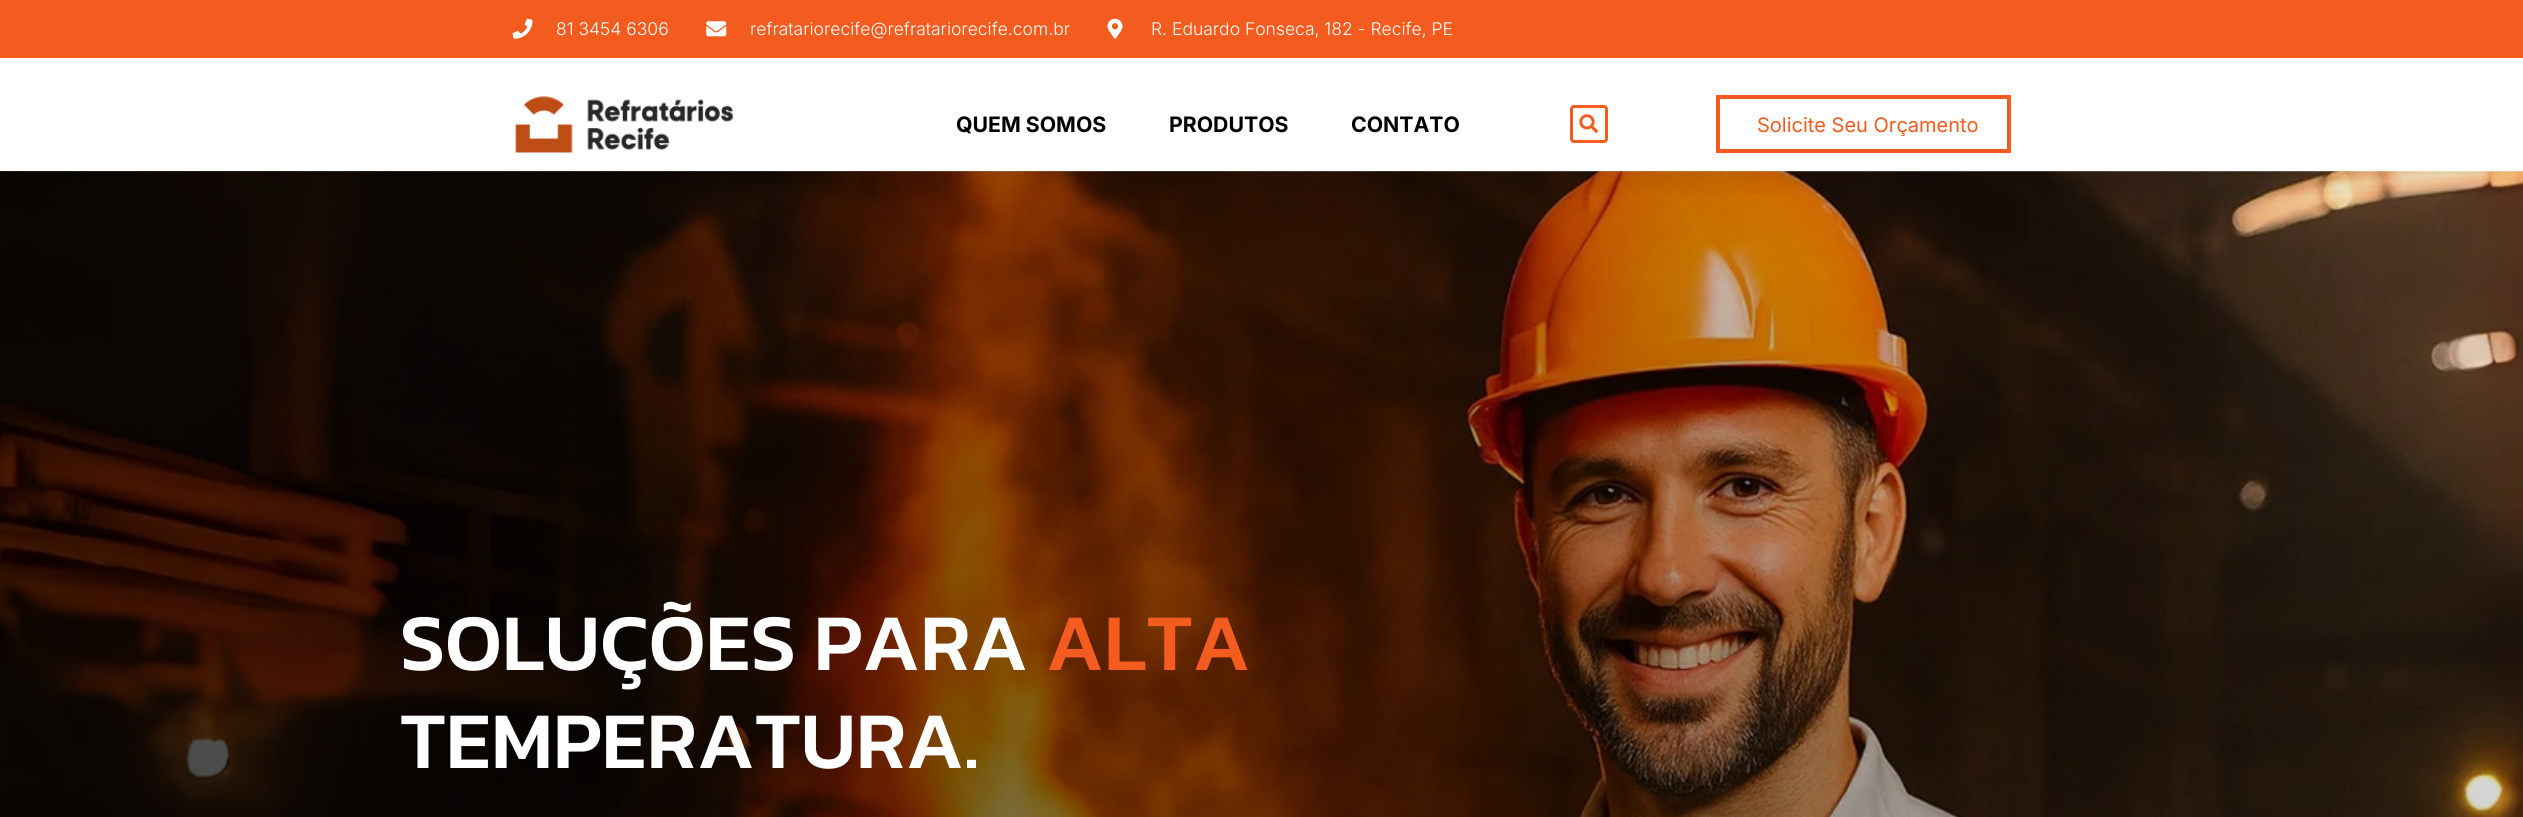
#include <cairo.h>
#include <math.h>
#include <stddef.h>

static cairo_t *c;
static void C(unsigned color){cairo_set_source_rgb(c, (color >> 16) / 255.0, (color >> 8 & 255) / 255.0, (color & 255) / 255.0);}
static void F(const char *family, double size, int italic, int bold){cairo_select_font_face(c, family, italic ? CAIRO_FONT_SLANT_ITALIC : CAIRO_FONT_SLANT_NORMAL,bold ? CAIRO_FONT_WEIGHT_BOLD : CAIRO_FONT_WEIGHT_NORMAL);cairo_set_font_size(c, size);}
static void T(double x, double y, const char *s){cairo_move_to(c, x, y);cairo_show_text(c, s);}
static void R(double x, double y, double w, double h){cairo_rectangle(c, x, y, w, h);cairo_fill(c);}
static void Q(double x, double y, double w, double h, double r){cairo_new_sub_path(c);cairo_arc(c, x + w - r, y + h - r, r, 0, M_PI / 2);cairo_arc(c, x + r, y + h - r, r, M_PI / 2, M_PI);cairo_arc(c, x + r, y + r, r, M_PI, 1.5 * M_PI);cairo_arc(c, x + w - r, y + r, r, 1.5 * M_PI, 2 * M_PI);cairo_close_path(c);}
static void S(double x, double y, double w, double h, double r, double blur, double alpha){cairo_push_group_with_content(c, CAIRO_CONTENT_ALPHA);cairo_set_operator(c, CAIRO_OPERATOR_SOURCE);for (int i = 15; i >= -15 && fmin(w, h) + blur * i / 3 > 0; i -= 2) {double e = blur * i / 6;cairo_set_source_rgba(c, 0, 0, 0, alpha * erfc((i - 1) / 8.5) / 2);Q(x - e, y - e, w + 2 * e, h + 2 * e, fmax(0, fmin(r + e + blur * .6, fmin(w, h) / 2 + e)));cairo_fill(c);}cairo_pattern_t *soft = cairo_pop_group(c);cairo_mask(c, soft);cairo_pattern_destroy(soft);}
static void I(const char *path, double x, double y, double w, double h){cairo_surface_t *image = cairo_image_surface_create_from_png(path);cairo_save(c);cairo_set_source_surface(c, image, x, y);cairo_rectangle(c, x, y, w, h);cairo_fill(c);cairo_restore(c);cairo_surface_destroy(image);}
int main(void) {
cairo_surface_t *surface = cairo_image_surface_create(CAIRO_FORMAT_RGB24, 2523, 817);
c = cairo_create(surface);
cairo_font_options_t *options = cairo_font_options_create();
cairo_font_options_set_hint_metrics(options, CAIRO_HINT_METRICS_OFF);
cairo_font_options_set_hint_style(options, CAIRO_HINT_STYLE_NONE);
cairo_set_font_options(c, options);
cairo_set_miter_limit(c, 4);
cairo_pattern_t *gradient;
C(0xffffff);
cairo_paint(c);
I("6.png",0,171,2523,646);
gradient = cairo_pattern_create_linear(337,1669,2187,-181);
cairo_pattern_add_color_stop_rgba(gradient,0,0,0,0,.89);
cairo_pattern_add_color_stop_rgba(gradient,1,0,0,0,0);
cairo_set_source(c,gradient);
cairo_pattern_destroy(gradient);
R(0,171,2523,646);
cairo_save(c);
cairo_rectangle(c,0,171,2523,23);
cairo_clip(c);
C(0x000000);
S(0,6,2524,172,0,19,.1);
cairo_restore(c);
C(0xf45b1e);
R(0,0,2523,58);
I("1.png",512,18,21,21);
F("Inter Light",17.5,0,0);
C(0xffffff);
T(556,35,"81 3454 6306");
I("2.png",706,21,21,16);
T(750,35,"refratariorecife@refratariorecife.com.br");
I("3.png",1107,18,16,21);
T(1151,35,"R. Eduardo Fonseca, 182 - Recife, PE");
I("4.png",515,96,219,57);
F("Inter",21.25,0,1);
C(0x000000);
T(956,132,"QUEM SOMOS");
T(1169,132,"PRODUTOS");
T(1351,132,"CONTATO");
Q(1571.5,106.5,35,35,2.5);
C(0xf45b1e);
cairo_set_line_width(c,3);
cairo_stroke(c);
I("5.png",1579,114,20,19);
cairo_rectangle(c,1718,97,291,54);
cairo_set_line_width(c,4);
cairo_stroke(c);
F("Inter",20,0,0);
T(1757,132,"Solicite Seu Orçamento");
F("Kanit Medium",81.25,0,0);
C(0xffffff);
T(400,670,"SOLUÇÕES PARA");
C(0xf45b1e);
T(1046,670,"ALTA");
C(0xffffff);
T(400,768,"TEMPERATURA.");
cairo_surface_write_to_png(surface, "o.png");
cairo_font_options_destroy(options);
cairo_destroy(c);
cairo_surface_destroy(surface);
return 0;
}
